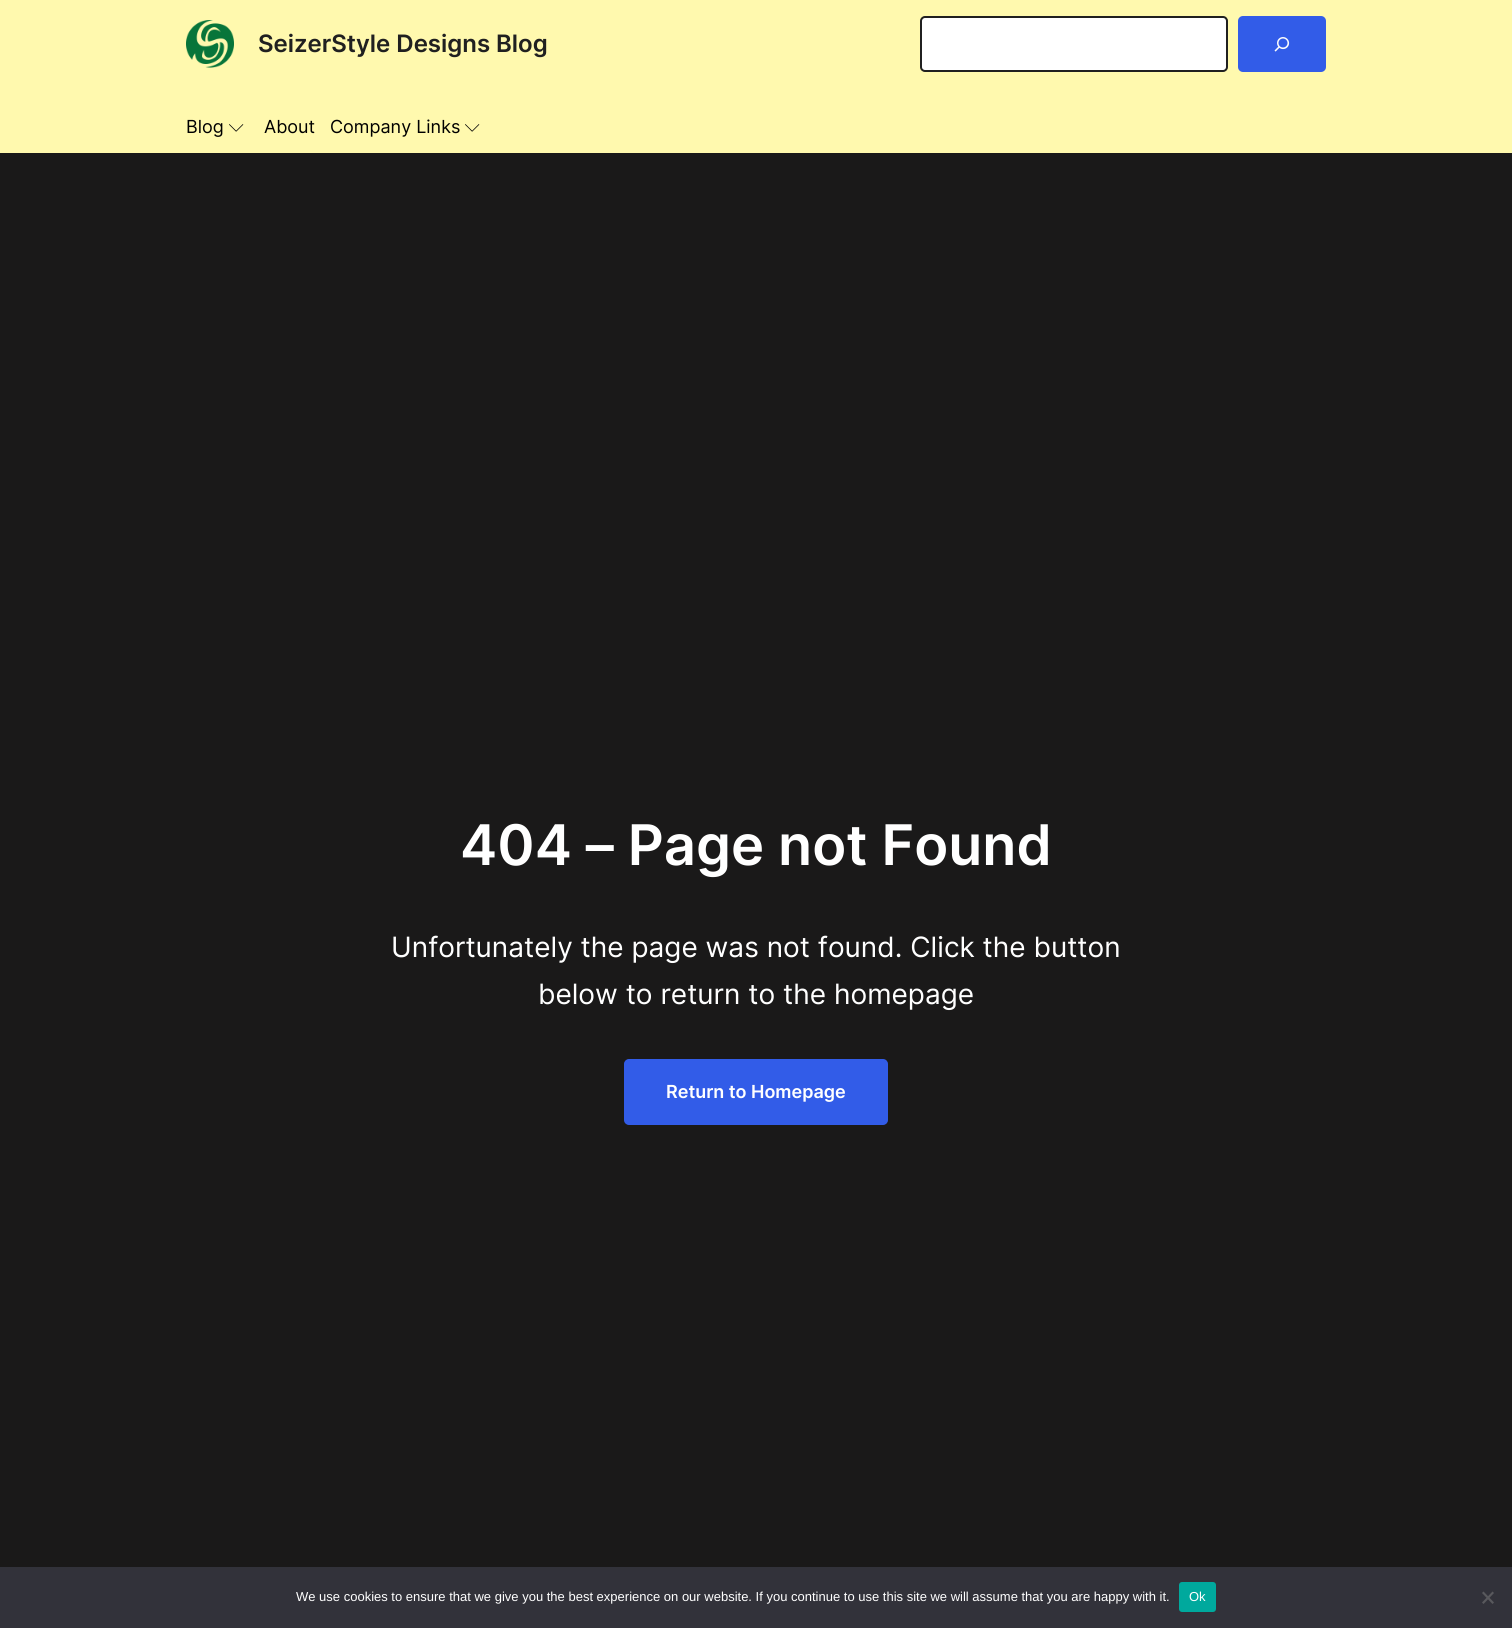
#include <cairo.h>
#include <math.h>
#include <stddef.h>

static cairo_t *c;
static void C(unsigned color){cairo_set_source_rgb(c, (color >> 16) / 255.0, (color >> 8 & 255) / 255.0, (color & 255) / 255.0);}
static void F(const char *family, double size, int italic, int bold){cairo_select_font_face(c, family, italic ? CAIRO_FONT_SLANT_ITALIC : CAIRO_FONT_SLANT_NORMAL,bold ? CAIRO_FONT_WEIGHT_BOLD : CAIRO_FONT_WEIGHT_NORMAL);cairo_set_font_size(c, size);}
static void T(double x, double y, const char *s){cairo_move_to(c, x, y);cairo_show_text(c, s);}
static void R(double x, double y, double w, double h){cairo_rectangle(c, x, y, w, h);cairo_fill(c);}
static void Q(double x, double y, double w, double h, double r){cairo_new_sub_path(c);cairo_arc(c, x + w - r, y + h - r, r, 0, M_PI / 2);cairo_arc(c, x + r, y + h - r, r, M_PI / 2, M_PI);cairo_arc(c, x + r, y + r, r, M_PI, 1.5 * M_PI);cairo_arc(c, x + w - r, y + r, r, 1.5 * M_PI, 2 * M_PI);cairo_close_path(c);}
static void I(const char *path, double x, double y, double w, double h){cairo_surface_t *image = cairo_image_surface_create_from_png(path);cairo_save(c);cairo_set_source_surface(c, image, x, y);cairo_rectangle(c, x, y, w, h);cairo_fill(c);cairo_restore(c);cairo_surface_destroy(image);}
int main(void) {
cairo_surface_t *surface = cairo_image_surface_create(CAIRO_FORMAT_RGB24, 1512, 1628);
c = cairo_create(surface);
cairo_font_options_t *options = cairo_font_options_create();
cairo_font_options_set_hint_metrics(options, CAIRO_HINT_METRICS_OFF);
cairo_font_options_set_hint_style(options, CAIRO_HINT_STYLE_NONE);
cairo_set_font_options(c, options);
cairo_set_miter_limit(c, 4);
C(0xfff9ae);
cairo_paint(c);
I("1.png",186,20,48,48);
F("Inter SemiBold",24,0,0);
C(0x202020);
T(258,52,"SeizerStyle Designs Blog");
C(0xffffff);
Q(921,17,306,54,4);
cairo_fill_preserve(c);
C(0x202020);
cairo_stroke(c);
C(0x325ce8);
Q(1238,16,88,56,5);
cairo_fill(c);
I("2.png",1274,37,16,15);
F("Inter",18,0,0);
C(0x000000);
T(186,133,"Blog");
I("3.png",229,124,15,8);
T(264,133,"About");
T(330,133,"Company Links");
I("3.png",465,124,15,8);
C(0x1a1919);
R(0,153,1512,1414);
F("Inter SemiBold",56,0,0);
C(0xffffff);
T(460,865,"404 – Page not Found");
F("Inter",28,0,0);
T(391,957,"Unfortunately the page was not found. Click the button");
T(538,1004,"below to return to the homepage");
C(0x325ce8);
Q(625,1060,262,64,4);
cairo_fill_preserve(c);
cairo_stroke(c);
F("Inter SemiBold",18,0,0);
C(0xffffff);
T(666,1098,"Return to Homepage");
C(0x32323a);
R(0,1567,1512,61);
F("Liberation Sans",13,0,0);
C(0xffffff);
T(296,1601,"We use cookies to ensure that we give you the best experience on our website. If you continue to use this site we will assume that you are happy with it.");
C(0x00a99d);
Q(1179,1582,37,30,3);
cairo_fill(c);
C(0xffffff);
T(1189,1601,"Ok");
C(0x59595d);
cairo_new_path(c);
cairo_move_to(c,1492.5,1591.5);
cairo_line_to(c,1494,1593);
cairo_line_to(c,1483.5,1604);
cairo_line_to(c,1482,1602.5);
cairo_close_path(c);
cairo_fill(c);
cairo_new_path(c);
cairo_move_to(c,1482,1593);
cairo_line_to(c,1483.5,1591.5);
cairo_line_to(c,1494,1602.5);
cairo_line_to(c,1492.5,1604);
cairo_close_path(c);
cairo_fill(c);
cairo_surface_write_to_png(surface, "o.png");
cairo_font_options_destroy(options);
cairo_destroy(c);
cairo_surface_destroy(surface);
return 0;
}
